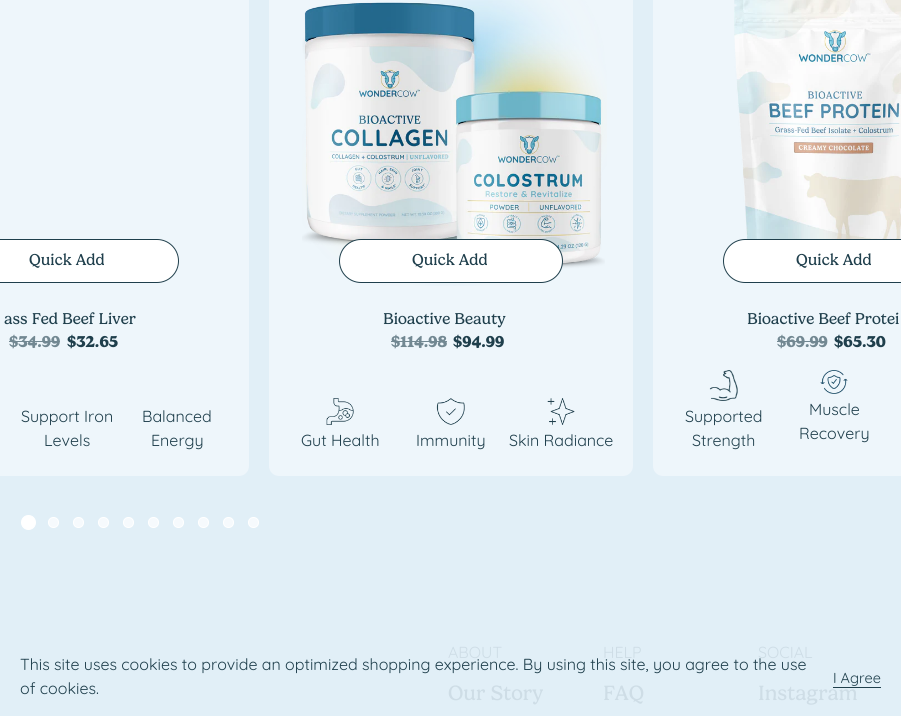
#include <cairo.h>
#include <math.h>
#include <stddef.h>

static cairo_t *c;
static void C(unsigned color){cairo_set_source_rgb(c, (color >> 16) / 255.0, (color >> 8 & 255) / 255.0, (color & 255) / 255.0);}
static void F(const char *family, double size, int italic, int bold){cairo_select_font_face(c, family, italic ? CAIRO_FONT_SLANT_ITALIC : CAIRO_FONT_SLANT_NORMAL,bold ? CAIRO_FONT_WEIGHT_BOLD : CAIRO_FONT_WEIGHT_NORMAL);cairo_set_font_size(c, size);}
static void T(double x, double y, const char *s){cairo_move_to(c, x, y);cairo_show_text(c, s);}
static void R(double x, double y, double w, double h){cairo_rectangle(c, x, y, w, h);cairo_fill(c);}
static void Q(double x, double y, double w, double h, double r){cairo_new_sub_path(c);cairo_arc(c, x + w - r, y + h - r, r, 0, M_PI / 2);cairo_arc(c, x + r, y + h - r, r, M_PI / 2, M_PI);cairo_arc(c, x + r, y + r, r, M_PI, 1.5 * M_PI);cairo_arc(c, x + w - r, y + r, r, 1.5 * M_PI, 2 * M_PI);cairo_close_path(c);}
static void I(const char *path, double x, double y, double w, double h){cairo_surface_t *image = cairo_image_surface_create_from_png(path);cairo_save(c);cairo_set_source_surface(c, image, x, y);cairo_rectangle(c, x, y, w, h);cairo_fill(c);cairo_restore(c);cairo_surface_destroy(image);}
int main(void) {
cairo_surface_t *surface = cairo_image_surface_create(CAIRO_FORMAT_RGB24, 901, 716);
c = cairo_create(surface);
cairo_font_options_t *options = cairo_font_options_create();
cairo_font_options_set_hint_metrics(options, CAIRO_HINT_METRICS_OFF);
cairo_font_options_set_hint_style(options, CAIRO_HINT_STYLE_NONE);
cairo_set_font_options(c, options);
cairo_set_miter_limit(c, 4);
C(0xe1eff7);
cairo_paint(c);
C(0xeef6fb);
cairo_new_path(c);
cairo_move_to(c,0,-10);
cairo_line_to(c,239,-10);
cairo_curve_to(c,244.5,-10,249,-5.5,249,0);
cairo_line_to(c,249,466);
cairo_curve_to(c,249,471.5,244.5,476,239,476);
cairo_line_to(c,0,476);
cairo_close_path(c);
cairo_fill(c);
C(0xffffff);
cairo_new_path(c);
cairo_move_to(c,0,239);
cairo_line_to(c,157,239);
cairo_curve_to(c,169,239,179,249,179,261);
cairo_curve_to(c,179,273,169,283,157,283);
cairo_line_to(c,0,283);
cairo_close_path(c);
cairo_fill(c);
Q(-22.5,239.5,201,43,21.5);
C(0x1f3f4c);
cairo_set_line_width(c,1);
cairo_stroke(c);
F("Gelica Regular",16,0,0);
T(29,265,"Quick Add");
T(4,324,"ass Fed Beef Liver");
F("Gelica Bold",16,0,1);
C(0x728892);
T(9,347,"$34.99");
R(9,341,51,1);
C(0x1f3f4c);
T(67,347,"$32.65");
F("Quicksand Light",16,0,0);
T(21,422,"Support Iron");
T(44,446,"Levels");
T(142,422,"Balanced");
T(151,446,"Energy");
C(0xeef6fb);
Q(269,-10,364,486,10);
cairo_fill(c);
I("1.png",302,0,305,286);
C(0xffffff);
Q(339.5,239.5,223,43,21.5);
cairo_fill_preserve(c);
C(0x1f3f4c);
cairo_stroke(c);
F("Gelica Regular",16,0,0);
T(412,265,"Quick Add");
T(383,324,"Bioactive Beauty");
F("Gelica Bold",16,0,1);
C(0x728892);
T(391,347,"$114.98");
R(391,341,56,1);
C(0x1f3f4c);
T(453,347,"$94.99");
I("2.png",326,398,28,27);
F("Quicksand Light",16,0,0);
T(301,446,"Gut Health");
I("3.png",436,398,29,27);
T(416,446,"Immunity");
I("4.png",547,398,28,27);
T(509,446,"Skin Radiance");
C(0xeef6fb);
cairo_new_path(c);
cairo_move_to(c,663,-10);
cairo_line_to(c,901,-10);
cairo_line_to(c,901,476);
cairo_line_to(c,663,476);
cairo_curve_to(c,657.5,476,653,471.5,653,466);
cairo_line_to(c,653,0);
cairo_curve_to(c,653,-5.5,657.5,-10,663,-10);
cairo_close_path(c);
cairo_fill(c);
I("5.png",734,0,167,239);
C(0xffffff);
cairo_new_path(c);
cairo_move_to(c,745,239);
cairo_line_to(c,901,239);
cairo_line_to(c,901,283);
cairo_line_to(c,745,283);
cairo_curve_to(c,733,283,723,273,723,261);
cairo_curve_to(c,723,249,733,239,745,239);
cairo_close_path(c);
cairo_fill(c);
Q(723.5,239.5,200,43,21.5);
C(0x1f3f4c);
cairo_stroke(c);
F("Gelica Regular",16,0,0);
T(796,265,"Quick Add");
T(747,324,"Bioactive Beef Protei");
F("Gelica Bold",16,0,1);
C(0x728892);
T(777,347,"$69.99");
R(777,341,50,1);
C(0x1f3f4c);
T(834,347,"$65.30");
I("6.png",709,370,29,31);
F("Quicksand Light",16,0,0);
T(685,422,"Supported");
T(692,446,"Strength");
I("7.png",820,370,28,24);
T(809,415,"Muscle");
T(799,439,"Recovery");
C(0xffffff);
cairo_new_path(c);
cairo_arc(c,28.5,522.5,7,0,2 * M_PI);
cairo_fill_preserve(c);
cairo_stroke(c);
C(0xf6fafd);
cairo_arc(c,53.5,522.5,5,0,2 * M_PI);
cairo_fill_preserve(c);
C(0xffffff);
cairo_stroke(c);
C(0xf6fafd);
cairo_arc(c,78.5,522.5,5,0,2 * M_PI);
cairo_fill_preserve(c);
C(0xffffff);
cairo_stroke(c);
C(0xf6fafd);
cairo_arc(c,103.5,522.5,5,0,2 * M_PI);
cairo_fill_preserve(c);
C(0xffffff);
cairo_stroke(c);
C(0xf6fafd);
cairo_arc(c,128.5,522.5,5,0,2 * M_PI);
cairo_fill_preserve(c);
C(0xffffff);
cairo_stroke(c);
C(0xf6fafd);
cairo_arc(c,153.5,522.5,5,0,2 * M_PI);
cairo_fill_preserve(c);
C(0xffffff);
cairo_stroke(c);
C(0xf6fafd);
cairo_arc(c,178.5,522.5,5,0,2 * M_PI);
cairo_fill_preserve(c);
C(0xffffff);
cairo_stroke(c);
C(0xf6fafd);
cairo_arc(c,203.5,522.5,5,0,2 * M_PI);
cairo_fill_preserve(c);
C(0xffffff);
cairo_stroke(c);
C(0xf6fafd);
cairo_arc(c,228.5,522.5,5,0,2 * M_PI);
cairo_fill_preserve(c);
C(0xffffff);
cairo_stroke(c);
C(0xf6fafd);
cairo_arc(c,253.5,522.5,5,0,2 * M_PI);
cairo_fill_preserve(c);
C(0xffffff);
cairo_stroke(c);
C(0xcedde6);
T(448,658,"ABOUT");
F("Gelica Regular",21,0,0);
T(448,700,"Our Story");
F("Quicksand Light",16,0,0);
T(603,658,"HELP");
F("Gelica Regular",21,0,0);
T(603,700,"FAQ");
F("Quicksand Light",16,0,0);
T(758,658,"SOCIAL");
F("Gelica Regular",21,0,0);
T(758,700,"Instagram");
F("Quicksand Light",16,0,0);
C(0x1f3f4c);
T(20,670,"This site uses cookies to provide an optimized shopping experience. By using this site, you agree to the use");
T(20,694,"of cookies.");
F("Quicksand Light",14.5,0,0);
T(833,683,"I Agree");
R(833,687,48,1);
cairo_surface_write_to_png(surface, "o.png");
cairo_font_options_destroy(options);
cairo_destroy(c);
cairo_surface_destroy(surface);
return 0;
}
